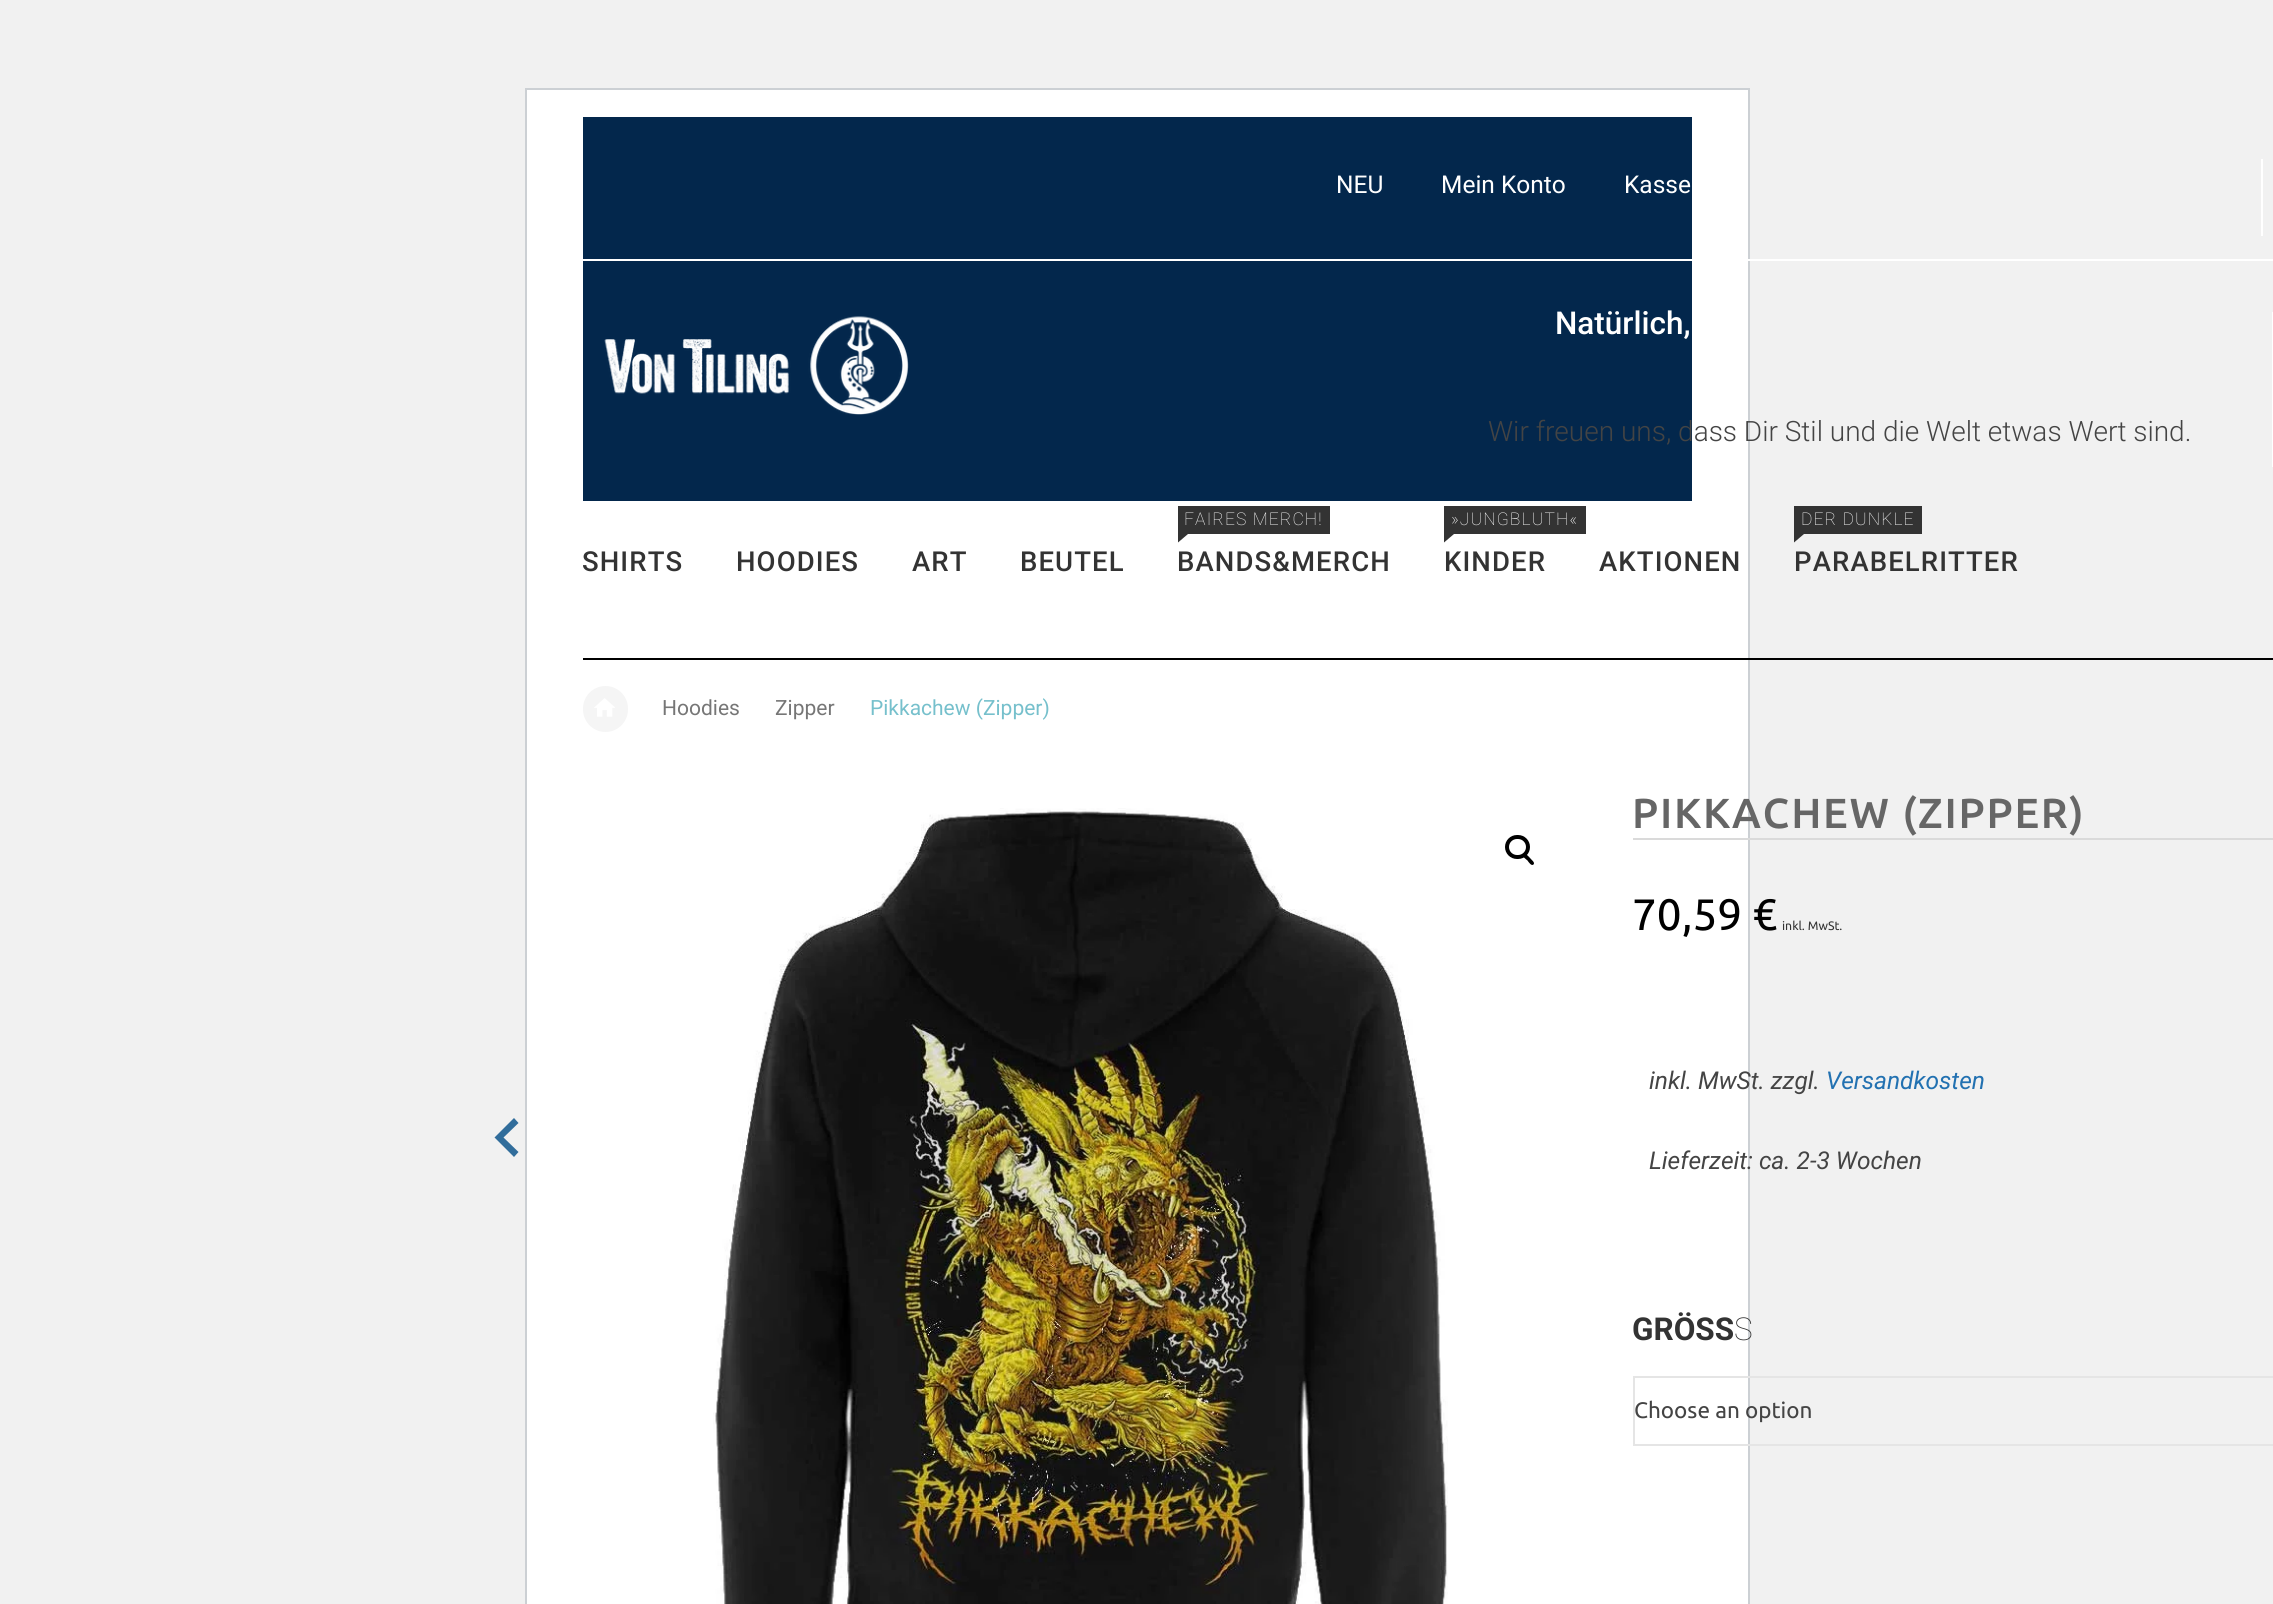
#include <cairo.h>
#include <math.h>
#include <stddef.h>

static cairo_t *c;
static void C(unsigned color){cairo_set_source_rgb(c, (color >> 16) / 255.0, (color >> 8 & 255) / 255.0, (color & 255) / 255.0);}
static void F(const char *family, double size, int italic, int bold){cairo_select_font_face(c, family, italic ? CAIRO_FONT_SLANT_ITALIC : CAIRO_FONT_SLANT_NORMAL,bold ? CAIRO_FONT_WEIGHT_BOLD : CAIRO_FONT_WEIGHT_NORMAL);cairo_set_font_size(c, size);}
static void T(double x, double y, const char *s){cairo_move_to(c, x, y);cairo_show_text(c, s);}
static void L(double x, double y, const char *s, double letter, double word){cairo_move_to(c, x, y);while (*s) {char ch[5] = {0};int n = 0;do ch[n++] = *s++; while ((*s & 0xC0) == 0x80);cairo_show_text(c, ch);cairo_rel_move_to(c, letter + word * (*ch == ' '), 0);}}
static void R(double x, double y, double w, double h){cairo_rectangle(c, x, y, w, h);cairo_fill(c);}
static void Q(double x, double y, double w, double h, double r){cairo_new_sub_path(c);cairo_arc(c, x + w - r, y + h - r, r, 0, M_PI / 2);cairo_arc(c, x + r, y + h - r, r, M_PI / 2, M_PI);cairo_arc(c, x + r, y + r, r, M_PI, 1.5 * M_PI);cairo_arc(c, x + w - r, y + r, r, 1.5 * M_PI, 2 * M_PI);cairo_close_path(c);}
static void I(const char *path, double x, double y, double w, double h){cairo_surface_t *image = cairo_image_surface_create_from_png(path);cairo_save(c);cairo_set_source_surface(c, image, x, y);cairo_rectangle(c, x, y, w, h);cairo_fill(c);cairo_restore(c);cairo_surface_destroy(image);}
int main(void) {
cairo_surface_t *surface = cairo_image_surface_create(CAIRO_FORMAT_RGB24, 2273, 1604);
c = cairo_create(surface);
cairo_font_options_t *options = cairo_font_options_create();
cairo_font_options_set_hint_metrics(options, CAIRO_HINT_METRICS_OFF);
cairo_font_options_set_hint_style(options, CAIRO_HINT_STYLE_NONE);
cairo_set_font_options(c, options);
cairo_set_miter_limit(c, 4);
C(0xf1f1f1);
cairo_paint(c);
C(0xffffff);
cairo_rectangle(c,526,89,1223,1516);
cairo_fill_preserve(c);
C(0xccd0d4);
cairo_stroke(c);
C(0x03274c);
R(583,117,1109,384);
C(0xffffff);
R(2261,159,2,77);
F("Roboto",24.5,0,0);
T(1336,193,"NEU");
T(1441,193,"Mein Konto");
T(1624,193,"Kasse");
R(583,259,1690,2);
I("1.png",604,316,305,99);
F("Roboto Medium",31.5,0,0);
T(1555,334,"Natürlich,");
F("Roboto Light",28,0,0);
C(0x444444);
T(1488,441,"Wir freuen uns, dass Dir Stil und die Welt etwas Wert sind.");
C(0xffffff);
R(2272,312,1,155);
F("Roboto Medium",27.5,0,0);
C(0x333333);
L(582,571,"SHIRTS",1.1,0);
L(736,571,"HOODIES",1.1,0);
L(912,571,"ART",1.1,0);
L(1020,571,"BEUTEL",1.1,0);
R(1178,506,152,28);
F("Roboto Thin",17.5,0,0);
C(0xffffff);
L(1184,525,"FAIRES MERCH!",1.1,0);
C(0x333333);
cairo_new_path(c);
cairo_move_to(c,1178,534);
cairo_line_to(c,1188,534);
cairo_line_to(c,1178,542.5);
cairo_close_path(c);
cairo_fill(c);
F("Roboto Medium",27.5,0,0);
L(1177,571,"BANDS&MERCH",1.1,0);
R(1444,506,142,28);
F("Roboto Thin",17.5,0,0);
C(0xffffff);
L(1451,525,"»JUNGBLUTH«",1.1,0);
C(0x333333);
cairo_new_path(c);
cairo_move_to(c,1444,534);
cairo_line_to(c,1454,534);
cairo_line_to(c,1444,542.5);
cairo_close_path(c);
cairo_fill(c);
F("Roboto Medium",27.5,0,0);
L(1444,571,"KINDER",1.1,0);
L(1599,571,"AKTIONEN",1.1,0);
R(1794,506,128,28);
F("Roboto Thin",17.5,0,0);
C(0xffffff);
L(1801,525,"DER DUNKLE",1.1,0);
C(0x333333);
cairo_new_path(c);
cairo_move_to(c,1794,534);
cairo_line_to(c,1804,534);
cairo_line_to(c,1794,542.5);
cairo_close_path(c);
cairo_fill(c);
F("Roboto Medium",27.5,0,0);
L(1794,571,"PARABELRITTER",1.1,0);
C(0x000000);
R(583,658,1690,2);
C(0xf5f5f5);
Q(583,686,45,46,22.5);
cairo_fill(c);
I("2.png",594,698,21,19);
F("Roboto",21,0,0);
C(0x767676);
T(662,715,"Hoodies");
T(775,715,"Zipper");
C(0x76c0cc);
T(870,715,"Pikkachew (Zipper)");
C(0x316d9b);
cairo_new_path(c);
cairo_move_to(c,518.5,1123);
cairo_line_to(c,503.5,1137.5);
cairo_line_to(c,518.5,1152);
cairo_line_to(c,514,1157);
cairo_line_to(c,494.5,1137.5);
cairo_line_to(c,514,1118);
cairo_close_path(c);
cairo_fill(c);
I("3.png",713,808,735,796);
Q(1507,837,21,20,10);
C(0x000000);
cairo_set_line_width(c,4);
cairo_stroke(c);
cairo_new_path(c);
cairo_move_to(c,1523.5,854.5);
cairo_curve_to(c,1525.5,852.5,1529,857,1530,858);
cairo_curve_to(c,1531,859.5,1535.5,862.5,1533.5,864.5);
cairo_curve_to(c,1531.5,866.5,1528.5,862,1527.5,860.5);
cairo_curve_to(c,1526.5,859.5,1521.5,856.5,1523.5,854.5);
cairo_close_path(c);
cairo_fill(c);
C(0xdadada);
R(1633,838,640,2);
F("Ubuntu Medium",42,0,0);
C(0x666666);
L(1632,828,"PIKKACHEW (ZIPPER)",1.75,0);
F("Ubuntu",44,0,0);
C(0x000000);
T(1632,930,"70,59 €");
F("Ubuntu",12.25,0,0);
C(0x333333);
T(1782,930,"inkl. MwSt.");
F("Roboto",24.5,1,0);
C(0x444444);
T(1649,1089,"inkl. MwSt. zzgl.");
C(0x2271b1);
T(1826,1089,"Versandkosten");
C(0x444444);
T(1649,1169,"Lieferzeit: ca. 2-3 Wochen");
F("Roboto",31.5,0,1);
C(0x333333);
T(1632,1340,"GRÖSS");
F("Roboto Thin",31.5,0,0);
T(1734,1340,"S");
cairo_rectangle(c,1634,1377,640,68);
C(0xe5e5e5);
cairo_set_line_width(c,2);
cairo_stroke(c);
F("Ubuntu",22.5,0,0);
C(0x444444);
T(1634,1418,"Choose an option");
cairo_surface_write_to_png(surface, "o.png");
cairo_font_options_destroy(options);
cairo_destroy(c);
cairo_surface_destroy(surface);
return 0;
}
